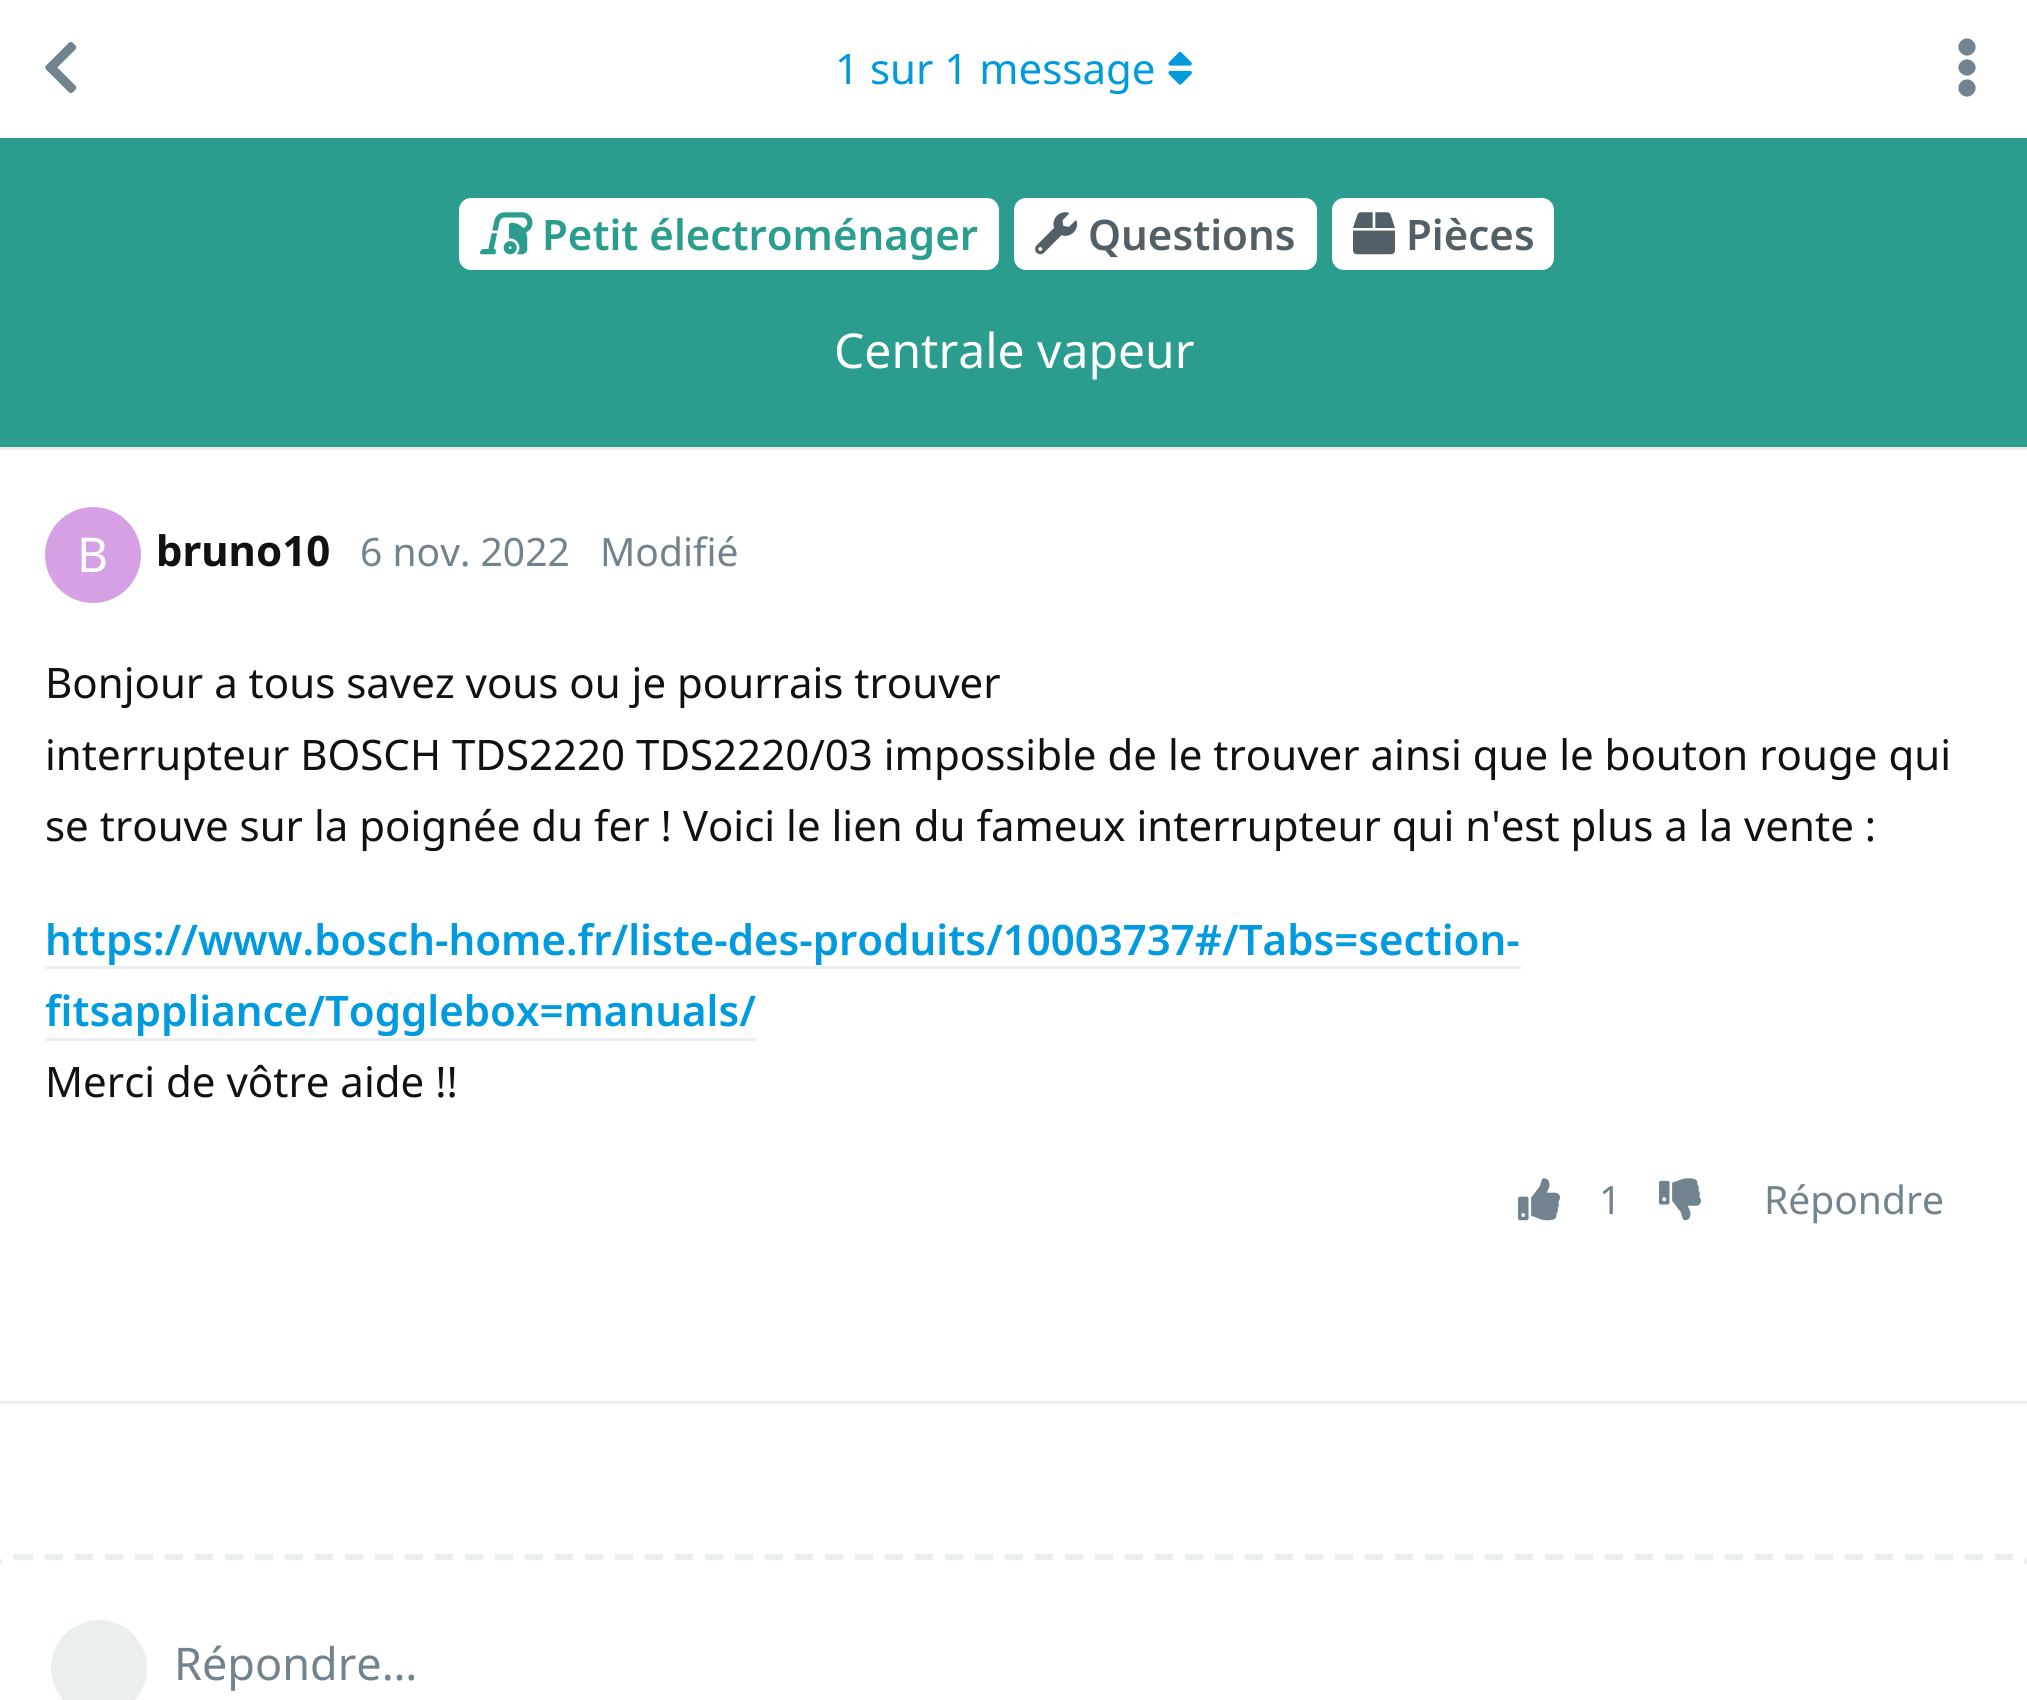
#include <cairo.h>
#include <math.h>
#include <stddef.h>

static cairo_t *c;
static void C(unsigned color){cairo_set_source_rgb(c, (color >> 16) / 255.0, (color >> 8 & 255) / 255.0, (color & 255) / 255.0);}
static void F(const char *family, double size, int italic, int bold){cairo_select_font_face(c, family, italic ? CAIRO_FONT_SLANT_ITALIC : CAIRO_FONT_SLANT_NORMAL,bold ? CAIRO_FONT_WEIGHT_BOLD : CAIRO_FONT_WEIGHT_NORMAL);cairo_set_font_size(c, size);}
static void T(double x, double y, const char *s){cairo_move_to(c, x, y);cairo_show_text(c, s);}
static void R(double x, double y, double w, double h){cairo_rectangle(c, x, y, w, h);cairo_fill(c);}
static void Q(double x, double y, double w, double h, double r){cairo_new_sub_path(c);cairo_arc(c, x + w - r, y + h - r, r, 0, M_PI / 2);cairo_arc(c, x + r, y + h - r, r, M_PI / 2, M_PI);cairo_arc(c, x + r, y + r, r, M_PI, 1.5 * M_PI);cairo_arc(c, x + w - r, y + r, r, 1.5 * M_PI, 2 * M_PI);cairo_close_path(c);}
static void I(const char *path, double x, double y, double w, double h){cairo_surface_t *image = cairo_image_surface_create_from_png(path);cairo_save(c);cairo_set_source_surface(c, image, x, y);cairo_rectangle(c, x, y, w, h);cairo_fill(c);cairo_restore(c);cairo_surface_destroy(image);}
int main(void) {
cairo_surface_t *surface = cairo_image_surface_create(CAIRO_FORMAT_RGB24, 2027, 1700);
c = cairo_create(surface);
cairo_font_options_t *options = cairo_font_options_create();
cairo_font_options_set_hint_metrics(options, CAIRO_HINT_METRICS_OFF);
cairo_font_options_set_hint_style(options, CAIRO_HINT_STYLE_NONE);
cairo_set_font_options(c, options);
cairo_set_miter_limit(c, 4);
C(0xffffff);
cairo_paint(c);
I("1.png",45,42,32,51);
C(0xebeeef);
R(0,447,2027,3);
F("Noto Sans",42,0,0);
C(0x009ade);
T(835,84,"1 sur 1 message");
I("2.png",1168,51,24,34);
C(0x71838e);
cairo_new_path(c);
cairo_move_to(c,1961,62);
cairo_curve_to(c,1969,54,1981,66,1973,73);
cairo_curve_to(c,1965,81,1953,69,1961,62);
cairo_close_path(c);
cairo_move_to(c,1961,53);
cairo_curve_to(c,1953,45,1965,33,1973,41);
cairo_curve_to(c,1981,49,1969,61,1961,53);
cairo_close_path(c);
cairo_move_to(c,1961,94);
cairo_curve_to(c,1953,86,1965,74,1973,82);
cairo_curve_to(c,1981,90,1969,102,1961,94);
cairo_close_path(c);
cairo_fill(c);
C(0xebeeef);
R(0,1401,2027,3);
C(0xd6a0e5);
cairo_arc(c,93,555,48,0,2 * M_PI);
cairo_fill(c);
F("Noto Sans",48,0,0);
C(0xffffff);
T(77,572,"B");
F("Noto Sans",42,0,1);
C(0x111111);
T(156,566,"bruno10");
F("Noto Sans",39,0,0);
C(0x71838e);
T(360,566,"6 nov. 2022");
T(600,566,"Modifié");
F("Noto Sans",42,0,0);
C(0x111111);
T(45,698,"Bonjour a tous savez vous ou je pourrais trouver");
T(45,770,"interrupteur BOSCH TDS2220 TDS2220/03 impossible de le trouver ainsi que le bouton rouge qui");
T(45,841,"se trouve sur la poignée du fer ! Voici le lien du fameux interrupteur qui n'est plus a la vente :");
F("Noto Sans SemiBold",42,0,0);
C(0x009ade);
T(45,955,"https://www.bosch-home.fr/liste-des-produits/10003737#/Tabs=section-");
C(0xebeeef);
R(45,966,1476,3);
C(0x009ade);
T(45,1026,"fitsappliance/Togglebox=manuals/");
C(0xebeeef);
R(45,1038,711,3);
F("Noto Sans",42,0,0);
C(0x111111);
T(45,1097,"Merci de vôtre aide !!");
I("3.png",1518,1178,42,43);
F("Noto Sans",39,0,0);
C(0x71838e);
T(1599,1214,"1");
I("4.png",1659,1178,42,43);
T(1764,1214,"Répondre");
cairo_new_path(c);
cairo_move_to(c,15,1557);
cairo_line_to(c,2013,1557);
cairo_curve_to(c,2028,1557,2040,1569,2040,1584);
cairo_line_to(c,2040,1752);
cairo_curve_to(c,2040,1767,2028,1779,2013,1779);
cairo_line_to(c,15,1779);
cairo_curve_to(c,0,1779,-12,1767,-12,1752);
cairo_line_to(c,-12,1584);
cairo_curve_to(c,-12,1569,0,1557,15,1557);
cairo_close_path(c);
C(0xebeeef);
cairo_set_line_width(c,6);
cairo_set_dash(c,(double[]){18,12},2,0);
cairo_stroke(c);
cairo_arc(c,99,1668,48,0,2 * M_PI);
cairo_fill(c);
F("Noto Sans",45,0,0);
C(0x71838e);
T(174,1680,"Répondre…");
C(0x2a9d8f);
R(0,138,2027,309);
C(0xffffff);
Q(459,198,540,72,12);
cairo_fill(c);
I("5.png",480,212,53,43);
F("Noto Sans SemiBold",42,0,0);
C(0x2a9d8f);
T(542,250,"Petit électroménager");
C(0xffffff);
Q(1014,198,303,72,12);
cairo_fill(c);
I("6.png",1035,212,43,43);
C(0x525f67);
T(1088,250,"Questions");
C(0xffffff);
Q(1332,198,222,72,12);
cairo_fill(c);
I("7.png",1353,212,42,43);
C(0x525f67);
T(1406,250,"Pièces");
F("Noto Sans",48,0,0);
C(0xffffff);
T(834,368,"Centrale vapeur");
cairo_surface_write_to_png(surface, "o.png");
cairo_font_options_destroy(options);
cairo_destroy(c);
cairo_surface_destroy(surface);
return 0;
}
